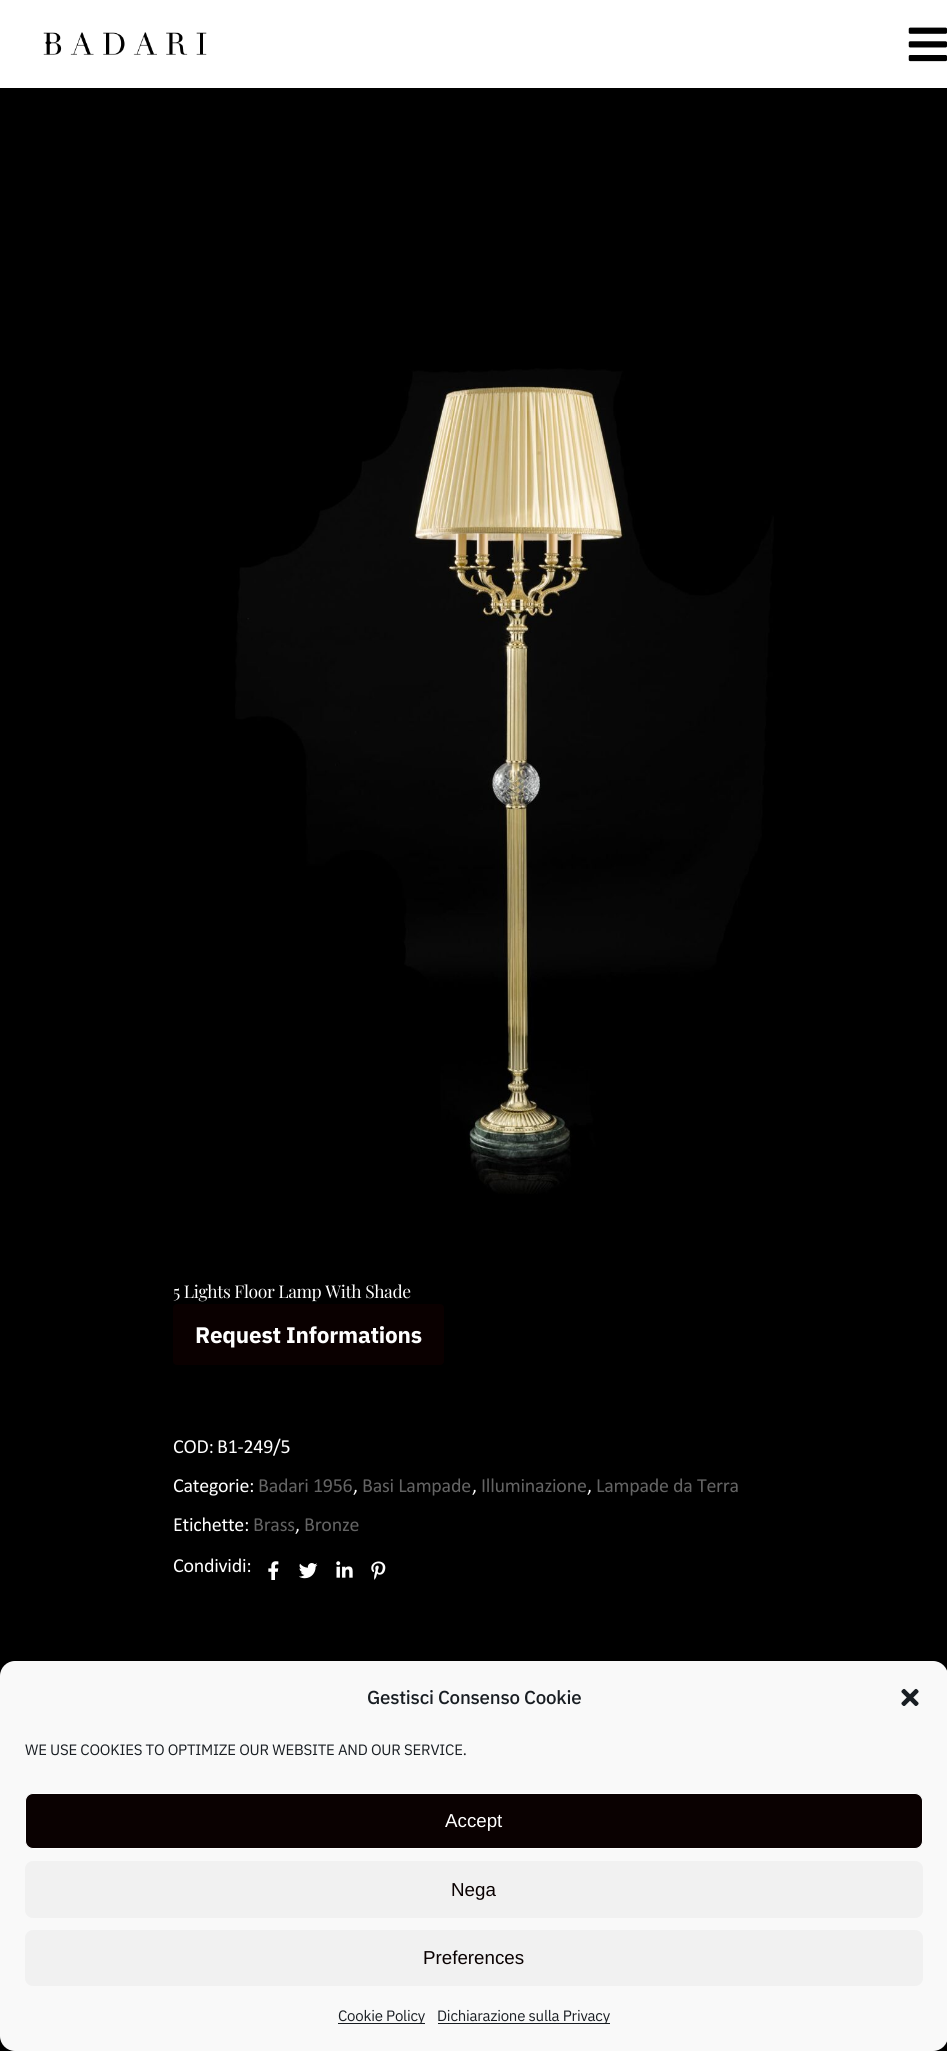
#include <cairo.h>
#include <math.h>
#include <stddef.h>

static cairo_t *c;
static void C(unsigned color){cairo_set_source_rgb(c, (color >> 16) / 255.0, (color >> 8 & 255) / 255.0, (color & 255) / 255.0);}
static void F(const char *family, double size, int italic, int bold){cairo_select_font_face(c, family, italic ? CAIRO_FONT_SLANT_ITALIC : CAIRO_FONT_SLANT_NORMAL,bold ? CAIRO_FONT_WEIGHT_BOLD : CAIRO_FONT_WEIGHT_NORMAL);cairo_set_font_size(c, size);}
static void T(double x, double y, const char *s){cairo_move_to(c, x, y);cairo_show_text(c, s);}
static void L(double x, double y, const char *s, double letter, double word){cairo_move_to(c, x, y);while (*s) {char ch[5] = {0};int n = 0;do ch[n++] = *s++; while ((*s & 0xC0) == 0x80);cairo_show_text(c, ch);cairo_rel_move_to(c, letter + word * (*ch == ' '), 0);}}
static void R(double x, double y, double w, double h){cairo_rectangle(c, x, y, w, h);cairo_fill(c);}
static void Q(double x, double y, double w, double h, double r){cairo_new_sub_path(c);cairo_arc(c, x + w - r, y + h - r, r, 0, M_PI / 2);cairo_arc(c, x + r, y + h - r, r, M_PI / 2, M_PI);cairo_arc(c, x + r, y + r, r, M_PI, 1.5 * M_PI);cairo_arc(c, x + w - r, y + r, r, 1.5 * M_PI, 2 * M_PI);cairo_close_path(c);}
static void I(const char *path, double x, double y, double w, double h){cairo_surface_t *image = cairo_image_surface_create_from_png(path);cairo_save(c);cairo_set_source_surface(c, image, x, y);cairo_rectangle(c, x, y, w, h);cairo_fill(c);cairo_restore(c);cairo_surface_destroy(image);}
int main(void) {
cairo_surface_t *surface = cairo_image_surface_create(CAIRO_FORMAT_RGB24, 947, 2051);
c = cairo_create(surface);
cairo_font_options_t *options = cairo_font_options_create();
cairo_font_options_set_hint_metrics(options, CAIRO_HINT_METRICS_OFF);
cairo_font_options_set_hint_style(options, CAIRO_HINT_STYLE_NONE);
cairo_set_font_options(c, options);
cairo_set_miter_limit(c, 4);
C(0xffffff);
cairo_paint(c);
I("1.png",43,32,164,23);
I("2.png",908,27,39,35);
C(0x000000);
R(0,88,947,1963);
I("3.png",235,368,539,826);
F("Playfair Display",17.5,0,0);
C(0xffffff);
L(173,1298,"5 Lights Floor Lamp With Shade",-.4,0);
C(0x0a0000);
Q(173,1304,271,61,4);
cairo_fill(c);
F("IBM Plex Sans",22.5,0,1);
C(0xffffff);
L(195,1343,"Request Informations",-.22,0);
F("Calibri",20,0,0);
L(173,1453,"COD:",-.25,0);
L(217,1453,"B1-249/5",-.25,0);
L(173,1492,"Categorie:",-.25,0);
C(0x646464);
L(258,1492,"Badari 1956",-.25,0);
C(0xffffff);
L(353,1492,",",-.25,0);
C(0x646464);
L(362,1492,"Basi Lampade",-.25,0);
C(0xffffff);
L(472,1492,",",-.25,0);
C(0x646464);
L(481,1492,"Illuminazione",-.25,0);
C(0xffffff);
L(587,1492,",",-.25,0);
C(0x646464);
L(596,1492,"Lampade da Terra",-.25,0);
C(0xffffff);
L(173,1531,"Etichette:",-.25,0);
C(0x646464);
L(253,1531,"Brass",-.25,0);
C(0xffffff);
L(295,1531,",",-.25,0);
C(0x646464);
L(304,1531,"Bronze",-.25,0);
C(0xffffff);
L(173,1572,"Condividi:",-.25,0);
I("4.png",268,1561,11,19);
I("5.png",299,1563,19,16);
I("6.png",336,1561,17,17);
I("7.png",371,1561,15,19);
C(0xf9f9f9);
Q(0,1661,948,390,15);
cairo_fill(c);
F("IBM Plex Sans Medium",18.75,0,0);
C(0x191e23);
L(367,1704,"Gestisci Consenso Cookie",-.22,0);
I("8.png",901,1688,18,18);
F("IBM Plex Sans",15,0,0);
L(25,1755,"WE USE COOKIES TO OPTIMIZE OUR WEBSITE AND OUR SERVICE.",-.22,0);
C(0x0a0101);
Q(25.5,1793.5,897,55,7.5);
cairo_fill_preserve(c);
C(0xffffff);
cairo_set_line_width(c,1);
cairo_stroke(c);
F("Liberation Sans",18.75,0,0);
T(445,1827,"Accept");
C(0xf1f1f1);
Q(25,1861,898,57,8);
cairo_fill(c);
C(0x0a0101);
T(451,1896,"Nega");
C(0xf1f1f1);
Q(25,1930,898,56,8);
cairo_fill(c);
C(0x0a0101);
T(423,1964,"Preferences");
C(0x191e23);
R(338,2023,87,1);
F("IBM Plex Sans",15,0,0);
L(338,2021,"Cookie Policy",-.22,0);
R(438,2023,172,1);
L(437,2021,"Dichiarazione sulla Privacy",-.22,0);
cairo_surface_write_to_png(surface, "o.png");
cairo_font_options_destroy(options);
cairo_destroy(c);
cairo_surface_destroy(surface);
return 0;
}
